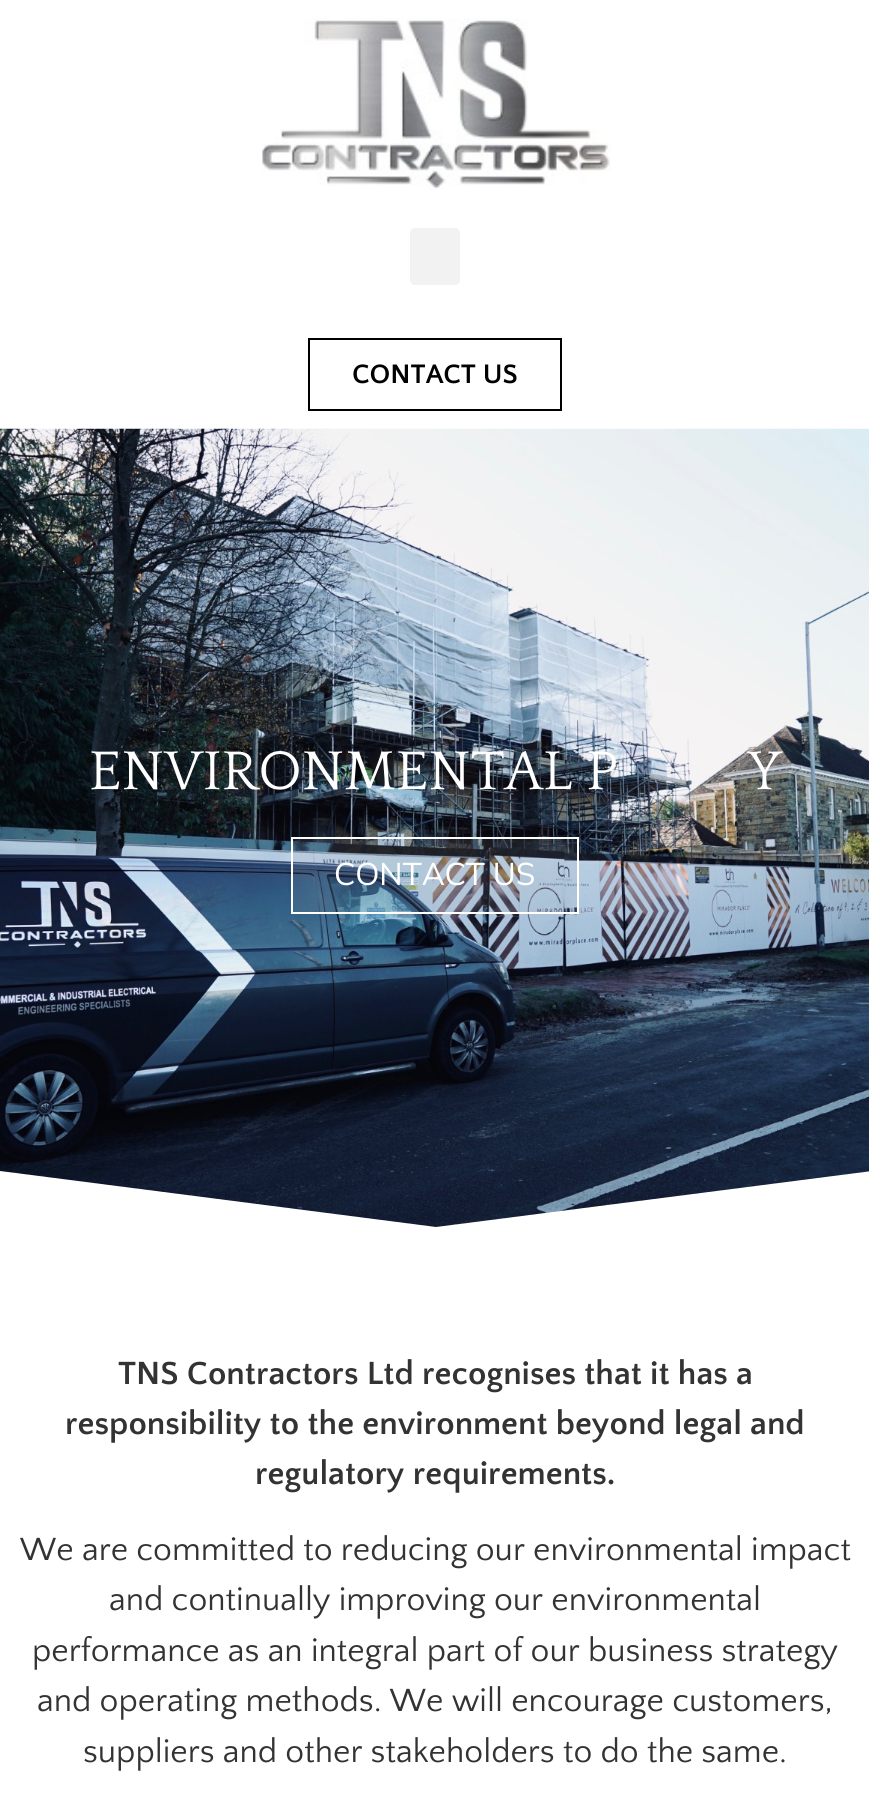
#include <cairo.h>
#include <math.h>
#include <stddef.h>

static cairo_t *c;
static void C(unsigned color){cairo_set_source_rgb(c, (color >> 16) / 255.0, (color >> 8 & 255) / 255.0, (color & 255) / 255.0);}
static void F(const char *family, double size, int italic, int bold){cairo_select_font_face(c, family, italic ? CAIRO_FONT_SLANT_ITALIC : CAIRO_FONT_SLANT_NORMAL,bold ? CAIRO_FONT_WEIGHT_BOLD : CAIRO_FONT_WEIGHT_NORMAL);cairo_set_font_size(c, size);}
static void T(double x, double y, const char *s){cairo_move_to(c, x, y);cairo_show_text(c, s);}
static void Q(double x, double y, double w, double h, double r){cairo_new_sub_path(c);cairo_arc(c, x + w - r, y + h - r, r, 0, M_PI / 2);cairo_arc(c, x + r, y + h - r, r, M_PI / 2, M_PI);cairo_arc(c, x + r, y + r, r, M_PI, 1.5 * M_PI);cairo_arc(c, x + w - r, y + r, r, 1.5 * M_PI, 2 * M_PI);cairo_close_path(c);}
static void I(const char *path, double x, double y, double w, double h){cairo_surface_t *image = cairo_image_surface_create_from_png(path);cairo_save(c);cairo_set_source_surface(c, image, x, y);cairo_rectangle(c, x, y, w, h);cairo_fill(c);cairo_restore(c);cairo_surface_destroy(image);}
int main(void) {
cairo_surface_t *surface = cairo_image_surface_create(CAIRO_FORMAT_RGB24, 869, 1804);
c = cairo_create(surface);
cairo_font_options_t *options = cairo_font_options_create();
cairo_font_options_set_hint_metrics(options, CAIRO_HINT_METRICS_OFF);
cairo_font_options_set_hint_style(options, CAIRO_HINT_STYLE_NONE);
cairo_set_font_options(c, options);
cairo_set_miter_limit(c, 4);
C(0xffffff);
cairo_paint(c);
I("1.png",262,18,349,172);
C(0xf2f2f2);
Q(410,228,50,57,5);
cairo_fill(c);
cairo_rectangle(c,309,339,252,71);
C(0x000000);
cairo_stroke(c);
F("Quattrocento Sans",28,0,1);
T(352,383,"CONTACT US");
I("2.png",0,428,869,799);
F("Quattrocento",57.1,0,0);
C(0xffffff);
T(89,789,"ENVIRONMENTAL P");
T(747,789,"Y");
cairo_set_source_rgba(c,0.69,0.706,0.694,0.11);
cairo_rectangle(c,292,838,286,75);
cairo_fill_preserve(c);
C(0xffffff);
cairo_stroke(c);
F("Nunito Sans",31.5,0,0);
T(334,885,"CONTACT US");
cairo_new_path(c);
cairo_move_to(c,436,1227);
cairo_line_to(c,0,1171);
cairo_line_to(c,0,1230);
cairo_line_to(c,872,1230);
cairo_line_to(c,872,1171);
cairo_close_path(c);
cairo_fill(c);
F("Quattrocento Sans",33.6,0,1);
C(0x333333);
T(118,1384,"TNS Contractors Ltd recognises that it has a");
T(65,1434,"responsibility to the environment beyond legal and");
T(255,1484,"regulatory requirements.");
F("Quattrocento Sans",33.6,0,0);
T(20,1560,"We are committed to reducing our environmental impact");
T(109,1610,"and continually improving our environmental");
T(32,1661,"performance as an integral part of our business strategy");
T(37,1711,"and operating methods. We will encourage customers,");
T(83,1762,"suppliers and other stakeholders to do the same.");
cairo_surface_write_to_png(surface, "o.png");
cairo_font_options_destroy(options);
cairo_destroy(c);
cairo_surface_destroy(surface);
return 0;
}
